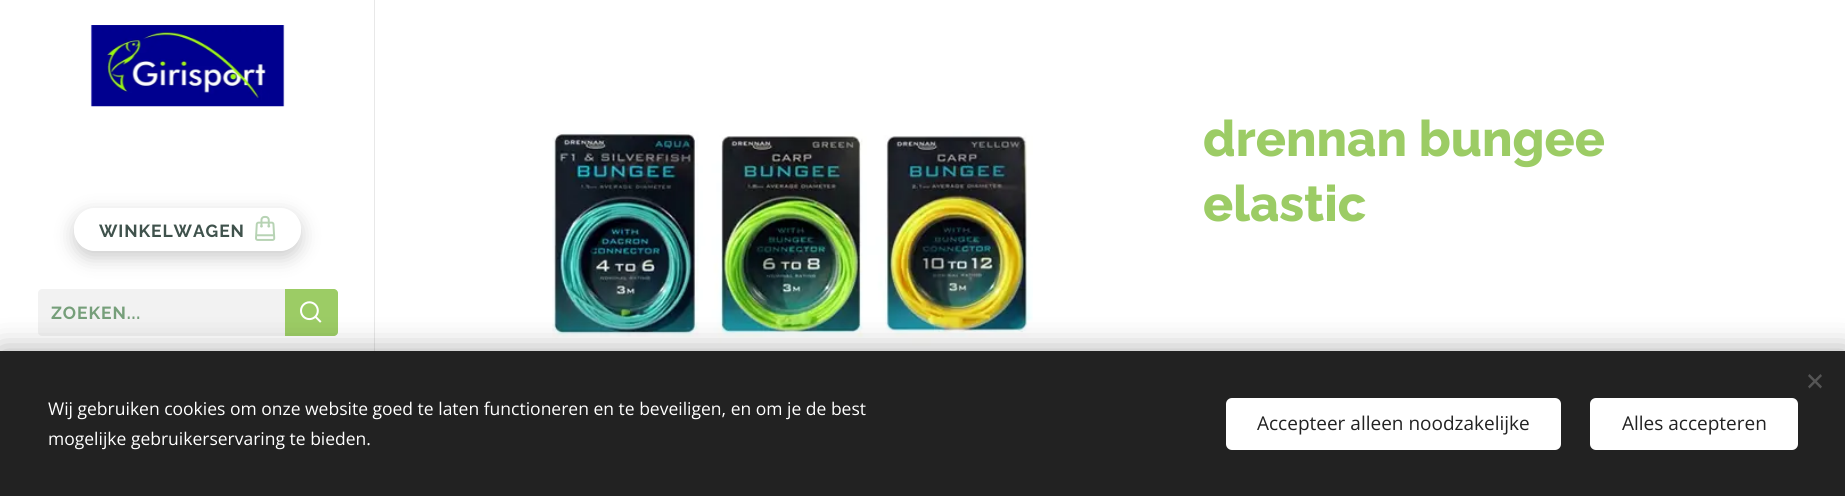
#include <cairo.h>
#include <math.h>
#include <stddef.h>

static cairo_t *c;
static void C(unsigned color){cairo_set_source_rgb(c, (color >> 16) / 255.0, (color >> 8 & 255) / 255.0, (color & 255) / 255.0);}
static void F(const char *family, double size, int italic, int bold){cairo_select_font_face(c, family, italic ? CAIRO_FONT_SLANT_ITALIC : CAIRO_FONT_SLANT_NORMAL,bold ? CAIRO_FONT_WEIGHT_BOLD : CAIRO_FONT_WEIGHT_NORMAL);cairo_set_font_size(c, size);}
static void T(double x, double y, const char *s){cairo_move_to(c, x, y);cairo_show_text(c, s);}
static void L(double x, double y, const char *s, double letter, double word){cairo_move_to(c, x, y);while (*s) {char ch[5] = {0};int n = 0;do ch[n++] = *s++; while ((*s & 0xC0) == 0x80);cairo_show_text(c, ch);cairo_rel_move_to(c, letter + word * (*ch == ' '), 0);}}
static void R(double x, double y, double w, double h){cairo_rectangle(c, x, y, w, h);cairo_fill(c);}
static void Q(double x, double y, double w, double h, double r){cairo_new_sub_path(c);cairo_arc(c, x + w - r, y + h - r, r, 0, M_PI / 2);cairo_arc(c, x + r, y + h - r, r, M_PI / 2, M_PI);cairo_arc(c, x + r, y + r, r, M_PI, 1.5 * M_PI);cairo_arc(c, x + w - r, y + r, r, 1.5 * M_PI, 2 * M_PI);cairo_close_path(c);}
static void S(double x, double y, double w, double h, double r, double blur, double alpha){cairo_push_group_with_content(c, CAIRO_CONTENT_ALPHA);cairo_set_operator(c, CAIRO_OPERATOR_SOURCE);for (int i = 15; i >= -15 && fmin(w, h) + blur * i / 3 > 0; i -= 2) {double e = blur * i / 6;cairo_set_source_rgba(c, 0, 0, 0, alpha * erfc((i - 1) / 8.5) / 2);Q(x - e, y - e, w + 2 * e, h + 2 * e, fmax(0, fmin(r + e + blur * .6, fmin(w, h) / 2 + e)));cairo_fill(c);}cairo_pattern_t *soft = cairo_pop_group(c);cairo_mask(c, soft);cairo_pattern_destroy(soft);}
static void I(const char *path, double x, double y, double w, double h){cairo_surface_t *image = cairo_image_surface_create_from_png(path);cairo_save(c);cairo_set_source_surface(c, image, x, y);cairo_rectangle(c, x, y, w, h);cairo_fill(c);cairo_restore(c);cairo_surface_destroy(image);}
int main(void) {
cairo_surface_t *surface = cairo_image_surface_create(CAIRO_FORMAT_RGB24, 1845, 496);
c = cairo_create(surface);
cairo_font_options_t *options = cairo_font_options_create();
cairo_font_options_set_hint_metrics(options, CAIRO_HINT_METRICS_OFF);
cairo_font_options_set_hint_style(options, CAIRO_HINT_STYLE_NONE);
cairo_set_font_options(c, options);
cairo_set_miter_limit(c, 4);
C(0xffffff);
cairo_paint(c);
I("1.png",552,130,481,221);
F("Raleway ExtraBold",50,0,0);
C(0x9ccc65);
T(1203,156,"drennan bungee");
T(1203,221,"elastic");
I("2.png",90,25,195,82);
cairo_save(c);
cairo_set_fill_rule(c,CAIRO_FILL_RULE_EVEN_ODD);
cairo_new_path(c);
cairo_move_to(c,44,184);
cairo_line_to(c,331,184);
cairo_line_to(c,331,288);
cairo_line_to(c,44,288);
cairo_close_path(c);
cairo_move_to(c,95,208);
cairo_line_to(c,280,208);
cairo_curve_to(c,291.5,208,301,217.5,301,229);
cairo_line_to(c,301,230);
cairo_curve_to(c,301,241.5,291.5,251,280,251);
cairo_line_to(c,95,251);
cairo_curve_to(c,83.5,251,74,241.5,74,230);
cairo_line_to(c,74,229);
cairo_curve_to(c,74,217.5,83.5,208,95,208);
cairo_close_path(c);
cairo_clip(c);
C(0x000000);
S(74,214,227,44,21,9.5,.2);
cairo_restore(c);
F("Raleway",17.5,0,1);
C(0x3f524c);
L(99,237,"WINKELWAGEN",.9,0);
I("3.png",255,215,21,26);
C(0xf2f2f2);
cairo_new_path(c);
cairo_move_to(c,42,289);
cairo_line_to(c,285,289);
cairo_line_to(c,285,336);
cairo_line_to(c,42,336);
cairo_curve_to(c,40,336,38,334,38,332);
cairo_line_to(c,38,293);
cairo_curve_to(c,38,291,40,289,42,289);
cairo_close_path(c);
cairo_fill(c);
C(0x769f7a);
L(51,319,"ZOEKEN...",.9,0);
C(0x9ccc65);
cairo_new_path(c);
cairo_move_to(c,285,289);
cairo_line_to(c,334,289);
cairo_curve_to(c,336,289,338,291,338,293);
cairo_line_to(c,338,332);
cairo_curve_to(c,338,334,336,336,334,336);
cairo_line_to(c,285,336);
cairo_close_path(c);
cairo_fill(c);
I("4.png",300,301,22,22);
C(0xe8e8e8);
R(374,0,1,351);
C(0x000000);
S(0,351,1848,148,0,15.5,.33);
C(0x222222);
R(0,351,1845,145);
C(0x555555);
cairo_new_path(c);
cairo_move_to(c,1808,386.5);
cairo_line_to(c,1820.5,374);
cairo_line_to(c,1822,376);
cairo_line_to(c,1809.5,388.5);
cairo_close_path(c);
cairo_fill(c);
cairo_new_path(c);
cairo_move_to(c,1809.5,374);
cairo_line_to(c,1822,386.5);
cairo_line_to(c,1820.5,388.5);
cairo_line_to(c,1808,376);
cairo_close_path(c);
cairo_fill(c);
F("Open Sans",17.5,0,0);
C(0xffffff);
T(48,415,"Wij gebruiken cookies om onze website goed te laten functioneren en te beveiligen, en om je de best");
T(48,445,"mogelijke gebruikerservaring te bieden.");
Q(1226,398,335,52,6);
cairo_fill(c);
F("Open Sans",19,0,0);
C(0x222222);
T(1257,430,"Accepteer alleen noodzakelijke");
C(0xffffff);
Q(1590,398,208,52,6);
cairo_fill(c);
C(0x222222);
T(1622,430,"Alles accepteren");
cairo_surface_write_to_png(surface, "o.png");
cairo_font_options_destroy(options);
cairo_destroy(c);
cairo_surface_destroy(surface);
return 0;
}
